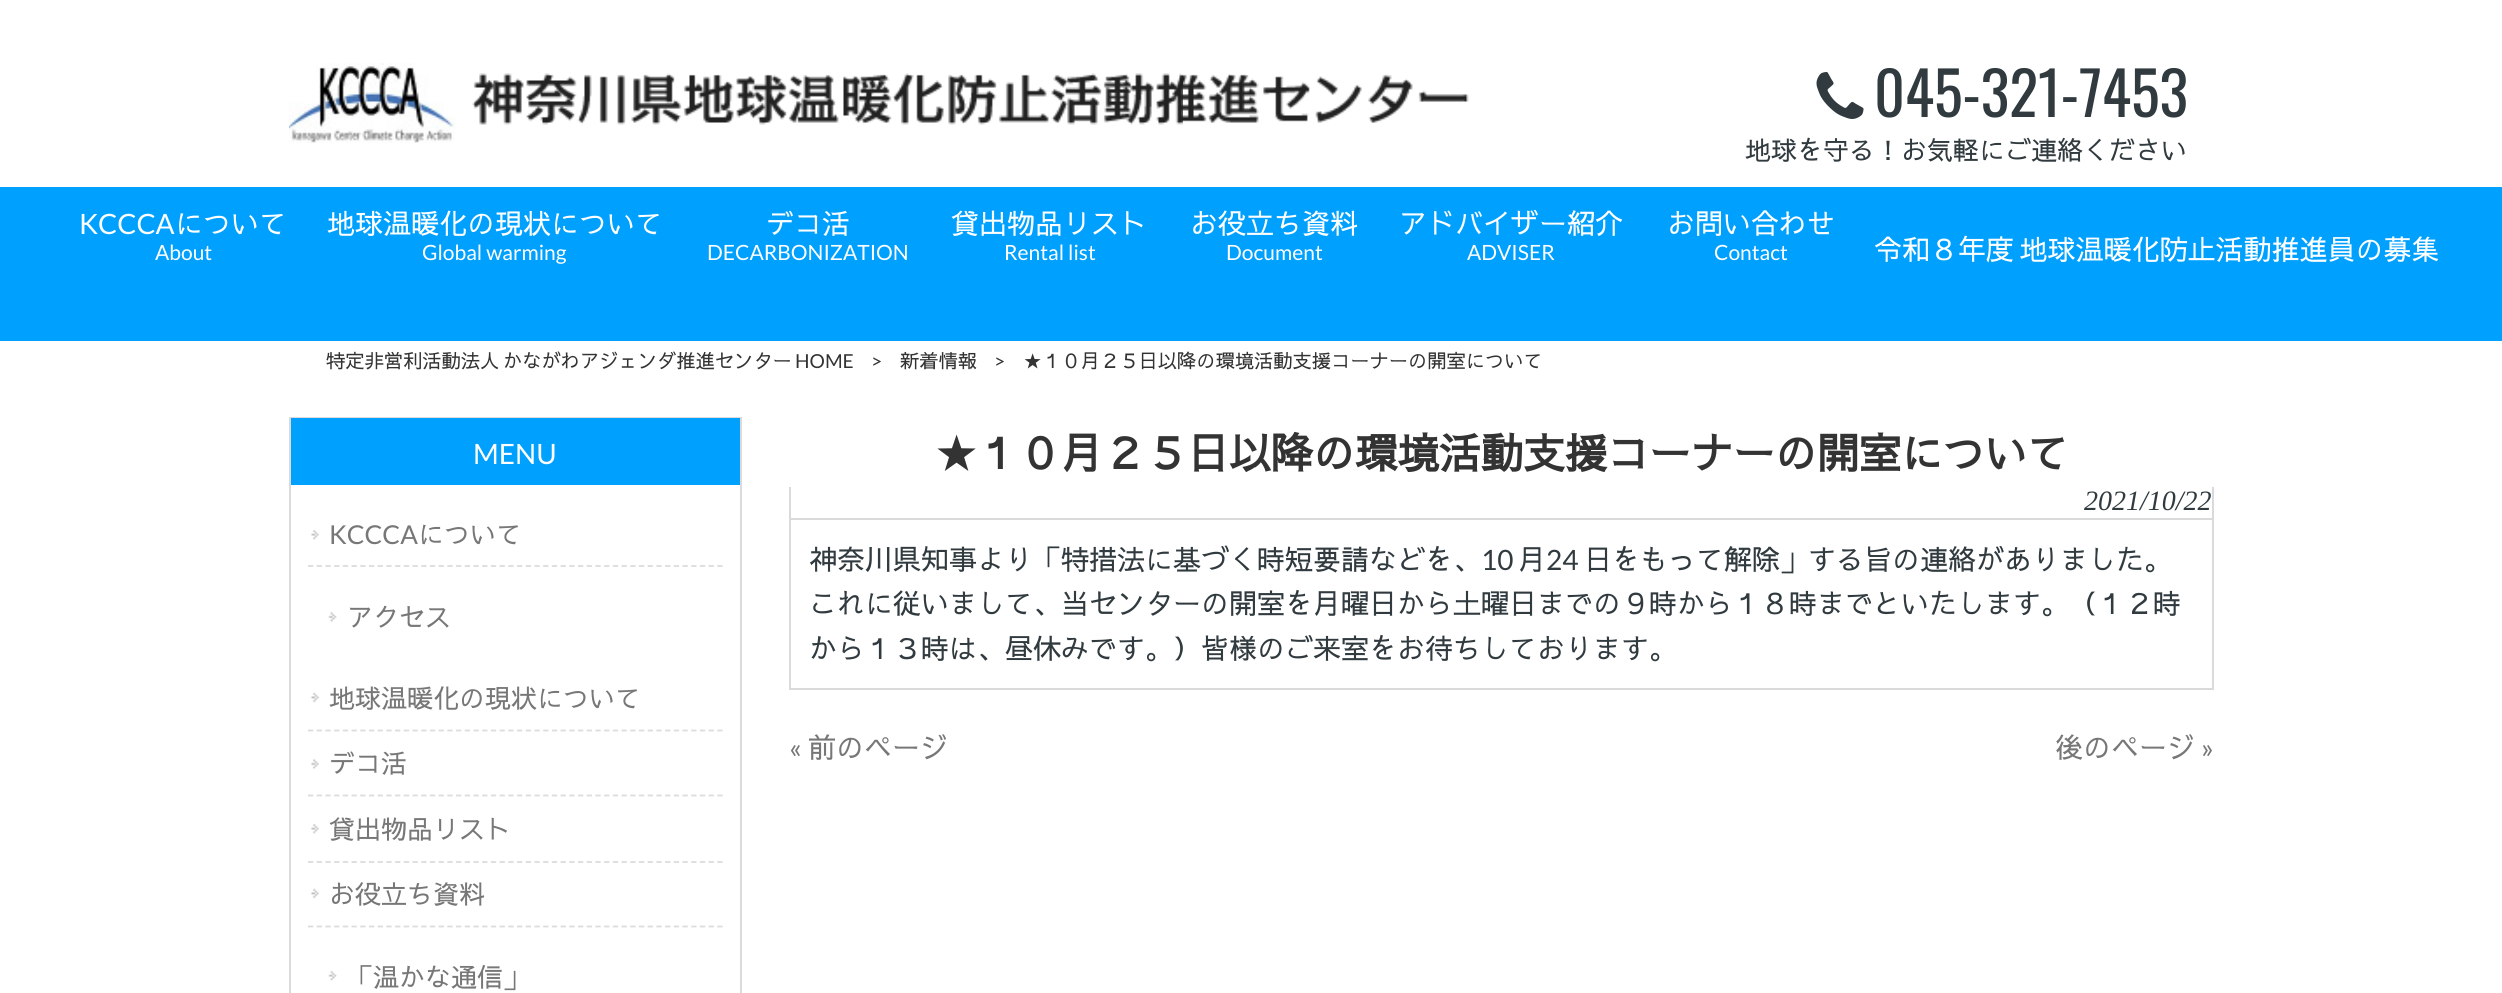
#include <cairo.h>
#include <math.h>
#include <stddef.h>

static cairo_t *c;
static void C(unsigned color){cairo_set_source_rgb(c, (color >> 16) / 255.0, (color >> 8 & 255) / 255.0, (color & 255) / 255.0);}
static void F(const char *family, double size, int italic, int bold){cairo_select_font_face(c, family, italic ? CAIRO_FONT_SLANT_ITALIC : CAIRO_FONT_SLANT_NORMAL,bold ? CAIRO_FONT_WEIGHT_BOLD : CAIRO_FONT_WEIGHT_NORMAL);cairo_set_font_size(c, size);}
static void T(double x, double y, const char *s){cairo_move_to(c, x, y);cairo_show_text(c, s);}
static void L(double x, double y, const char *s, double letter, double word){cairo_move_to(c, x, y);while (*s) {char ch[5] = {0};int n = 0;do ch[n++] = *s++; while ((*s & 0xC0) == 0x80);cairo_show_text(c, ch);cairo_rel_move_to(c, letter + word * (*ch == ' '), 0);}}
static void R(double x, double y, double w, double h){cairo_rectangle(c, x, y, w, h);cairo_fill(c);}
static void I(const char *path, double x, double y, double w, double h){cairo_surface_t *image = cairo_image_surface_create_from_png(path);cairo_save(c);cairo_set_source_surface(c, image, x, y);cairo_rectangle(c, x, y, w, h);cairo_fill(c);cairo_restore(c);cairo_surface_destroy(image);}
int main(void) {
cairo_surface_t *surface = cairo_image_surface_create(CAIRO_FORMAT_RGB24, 2502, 993);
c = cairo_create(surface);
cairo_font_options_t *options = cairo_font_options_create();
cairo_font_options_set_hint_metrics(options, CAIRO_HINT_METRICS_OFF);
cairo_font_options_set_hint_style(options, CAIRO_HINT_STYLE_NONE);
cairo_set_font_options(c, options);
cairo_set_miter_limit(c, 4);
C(0xffffff);
cairo_paint(c);
I("1.png",289,63,1180,80);
I("2.png",1816,71,48,48);
F("Oswald",60,0,0);
C(0x313b3f);
T(1874,117,"045-321-7453");
F("Sawarabi Gothic",26,0,0);
T(1745,160,"地球を守る！お気軽にご連絡ください");
C(0x00a0ff);
R(0,187,2502,154);
F("Lato",28,0,0);
C(0xffffff);
T(79,234,"KCCCA");
F("Sawarabi Gothic",28,0,0);
T(175,234,"について");
F("Lato",21,0,0);
T(155,260,"About");
F("Sawarabi Gothic",28,0,0);
T(327,234,"地球温暖化の現状について");
F("Lato",21,0,0);
T(422,260,"Global warming");
F("Sawarabi Gothic",28,0,0);
T(766,234,"デコ活");
F("Lato",21,0,0);
T(707,260,"DECARBONIZATION");
F("Sawarabi Gothic",28,0,0);
T(951,234,"貸出物品リスト");
F("Lato",21,0,0);
T(1004,260,"Rental list");
F("Sawarabi Gothic",28,0,0);
T(1190,234,"お役立ち資料");
F("Lato",21,0,0);
T(1226,260,"Document");
F("Sawarabi Gothic",28,0,0);
T(1399,234,"アドバイザー紹介");
F("Lato",21,0,0);
T(1467,260,"ADVISER");
F("Sawarabi Gothic",28,0,0);
T(1667,234,"お問い合わせ");
F("Lato",21,0,0);
T(1714,260,"Contact");
F("Sawarabi Gothic",28,0,0);
L(1874,260,"令和８年度 地球温暖化防止活動推進員の募集",0,-3);
F("Sawarabi Gothic",19.25,0,0);
C(0x333333);
L(326,368,"特定非営利活動法人 かながわアジェンダ推進センター",0,-2);
F("Lato",19.25,0,0);
T(795,368,"HOME");
T(871,368,">");
F("Sawarabi Gothic",19.25,0,0);
T(900,368,"新着情報");
F("Lato",19.25,0,0);
T(994,368,">");
F("Sawarabi Gothic",19.25,0,0);
T(1023,368,"★１０月２５日以降の環境活動支援コーナーの開室について");
cairo_rectangle(c,290,418,451,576);
C(0xdadada);
cairo_stroke(c);
C(0x00a0ff);
R(291,418,449,67);
F("Lato",28,0,0);
C(0xffffff);
T(473,464,"MENU");
I("3.png",311,530,8,10);
cairo_new_path(c);
cairo_move_to(c,308,566);
cairo_line_to(c,723,566);
C(0xdcdcdc);
cairo_set_line_width(c,1.8);
cairo_set_dash(c,(double[]){5.25,3.46},2,0);
cairo_stroke(c);
F("Lato",26,0,0);
C(0x777777);
T(329,544,"KCCCA");
F("Sawarabi Gothic",26,0,0);
T(418,544,"について");
I("4.png",328,612,9,10);
T(347,627,"アクセス");
I("5.png",311,692,8,11);
cairo_new_path(c);
cairo_move_to(c,308,730.5);
cairo_line_to(c,723,730.5);
C(0xdcdcdc);
cairo_stroke(c);
C(0x777777);
T(329,708,"地球温暖化の現状について");
I("6.png",311,759,8,10);
cairo_new_path(c);
cairo_move_to(c,308,795.5);
cairo_line_to(c,723,795.5);
C(0xdcdcdc);
cairo_stroke(c);
C(0x777777);
T(329,773,"デコ活");
I("3.png",311,824,8,10);
cairo_new_path(c);
cairo_move_to(c,308,862);
cairo_line_to(c,723,862);
C(0xdcdcdc);
cairo_stroke(c);
C(0x777777);
T(329,839,"貸出物品リスト");
I("5.png",311,888,8,11);
cairo_new_path(c);
cairo_move_to(c,308,926.5);
cairo_line_to(c,723,926.5);
C(0xdcdcdc);
cairo_stroke(c);
C(0x777777);
T(329,904,"お役立ち資料");
I("7.png",328,971,9,10);
T(347,987,"「温かな通信」");
F("Sawarabi Gothic",42,0,1);
C(0x333333);
T(935,469,"★１０月２５日以降の環境活動支援コーナーの開室について");
C(0xdadada);
R(2212,487,2,31);
R(789,487,2,31);
F("Liberation Serif",28,1,0);
C(0x313b3f);
T(2084,510,"2021/10/22");
cairo_rectangle(c,790,519,1423,170);
C(0xdadada);
cairo_set_line_width(c,2);
cairo_set_dash(c,NULL,0,0);
cairo_stroke(c);
F("Sawarabi Gothic",28,0,0);
C(0x313b3f);
T(809,570,"神奈川県知事より「特措法に基づく時短要請などを、");
F("Lato",28,0,0);
T(1481,570,"10");
F("Sawarabi Gothic",28,0,0);
T(1518,570,"月");
F("Lato",28,0,0);
T(1546,570,"24");
F("Sawarabi Gothic",28,0,0);
T(1584,570,"日をもって解除」する旨の連絡がありました。");
T(809,614,"これに従いまして、当センターの開室を月曜日から土曜日までの９時から１８時までといたします。（１２時");
T(809,659,"から１３時は、昼休みです。）皆様のご来室をお待ちしております。");
F("Lato",28,0,0);
C(0x777777);
T(789,758,"«");
F("Sawarabi Gothic",28,0,0);
T(808,758,"前のページ");
T(2055,758,"後のページ");
F("Lato",28,0,0);
T(2201,758,"»");
cairo_surface_write_to_png(surface, "o.png");
cairo_font_options_destroy(options);
cairo_destroy(c);
cairo_surface_destroy(surface);
return 0;
}
